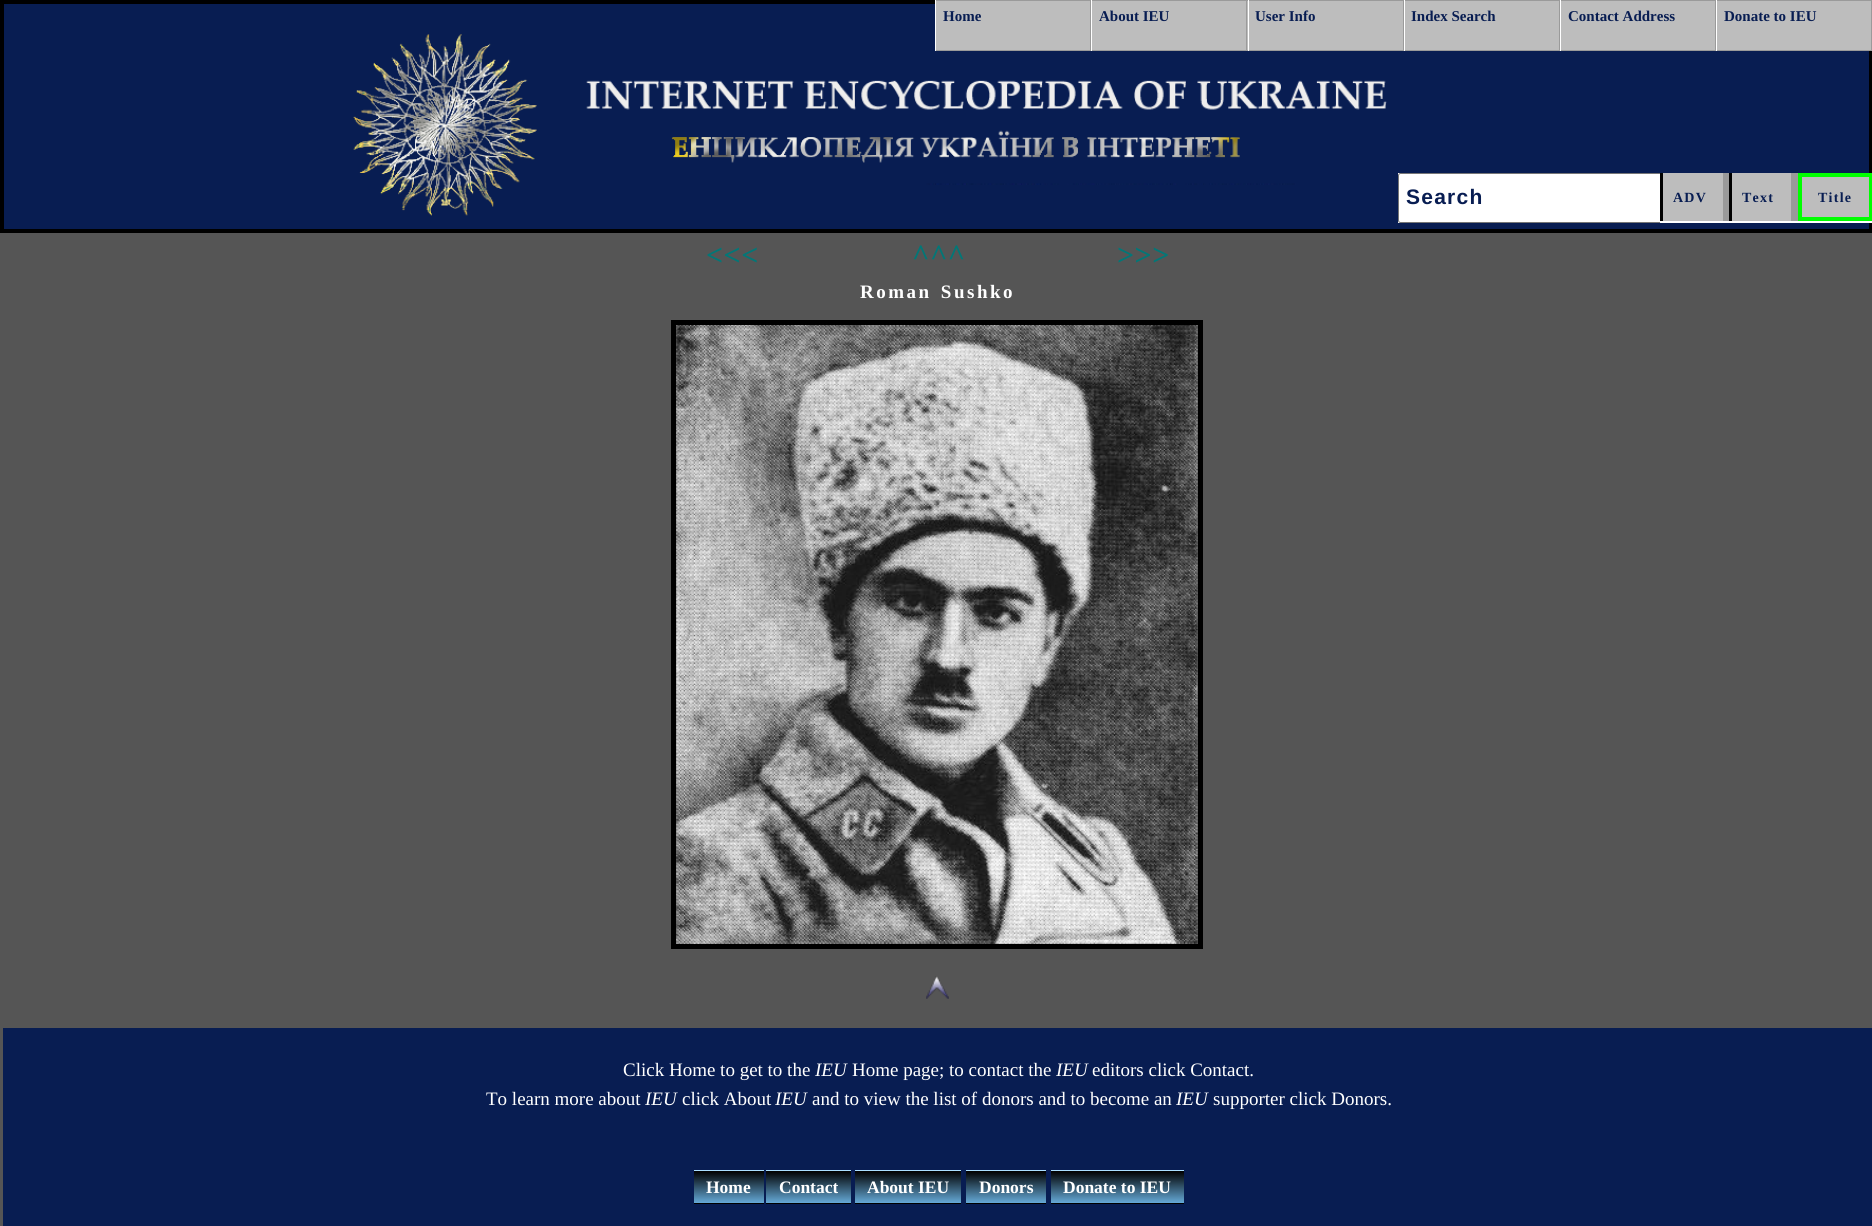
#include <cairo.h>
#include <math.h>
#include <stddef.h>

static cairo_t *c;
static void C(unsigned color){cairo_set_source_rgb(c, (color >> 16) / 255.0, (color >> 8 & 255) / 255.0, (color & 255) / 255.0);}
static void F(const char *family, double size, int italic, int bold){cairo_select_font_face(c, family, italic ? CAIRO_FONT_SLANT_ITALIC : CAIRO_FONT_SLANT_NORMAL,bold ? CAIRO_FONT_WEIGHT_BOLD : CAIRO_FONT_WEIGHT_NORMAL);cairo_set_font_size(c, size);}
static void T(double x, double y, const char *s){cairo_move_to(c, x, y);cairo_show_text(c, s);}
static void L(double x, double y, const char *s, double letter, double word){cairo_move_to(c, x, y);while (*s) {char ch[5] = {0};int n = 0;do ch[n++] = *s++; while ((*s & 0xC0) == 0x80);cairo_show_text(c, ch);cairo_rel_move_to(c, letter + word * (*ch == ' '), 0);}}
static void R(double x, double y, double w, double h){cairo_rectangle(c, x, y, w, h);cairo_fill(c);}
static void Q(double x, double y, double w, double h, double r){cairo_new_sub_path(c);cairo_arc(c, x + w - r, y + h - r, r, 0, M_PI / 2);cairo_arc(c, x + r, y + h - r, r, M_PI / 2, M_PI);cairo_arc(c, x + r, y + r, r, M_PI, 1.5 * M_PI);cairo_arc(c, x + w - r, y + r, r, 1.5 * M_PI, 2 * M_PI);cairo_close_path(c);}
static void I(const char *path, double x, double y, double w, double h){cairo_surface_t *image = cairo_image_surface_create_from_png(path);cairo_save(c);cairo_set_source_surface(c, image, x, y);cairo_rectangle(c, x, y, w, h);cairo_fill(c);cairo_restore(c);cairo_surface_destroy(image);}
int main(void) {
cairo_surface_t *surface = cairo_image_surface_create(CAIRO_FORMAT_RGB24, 1872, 1226);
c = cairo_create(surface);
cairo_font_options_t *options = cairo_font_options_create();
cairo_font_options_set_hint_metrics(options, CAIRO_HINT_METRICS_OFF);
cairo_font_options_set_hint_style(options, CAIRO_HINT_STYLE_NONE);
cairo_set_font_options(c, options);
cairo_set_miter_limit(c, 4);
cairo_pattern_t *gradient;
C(0x081d52);
cairo_paint(c);
cairo_rectangle(c,2,2,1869,229);
C(0x000000);
cairo_set_line_width(c,4);
cairo_stroke(c);
I("1.png",353,34,1034,182);
C(0xbdbdbd);
R(936,1,154,49);
C(0x9a9a9a);
R(935,0,937,1);
R(1090,0,1,51);
R(935,50,156,1);
C(0xffffff);
R(935,0,1,51);
F("Liberation Serif",15,0,1);
C(0x081d52);
T(943,21,"Home");
C(0xbdbdbd);
R(1092,1,156,49);
C(0x9a9a9a);
R(1246,0,1,51);
R(1091,50,157,1);
C(0xffffff);
R(1091,0,1,51);
C(0x081d52);
T(1099,21,"About IEU");
C(0xbdbdbd);
R(1249,1,154,49);
C(0x9a9a9a);
R(1403,0,1,51);
R(1248,50,156,1);
C(0xffffff);
R(1248,0,1,51);
C(0x081d52);
T(1255,21,"User Info");
C(0xbdbdbd);
R(1405,1,154,49);
C(0x9a9a9a);
R(1559,0,1,51);
R(1404,50,156,1);
C(0xffffff);
R(1404,0,1,51);
C(0x081d52);
T(1411,21,"Index Search");
C(0xbdbdbd);
R(1561,1,154,49);
C(0x9a9a9a);
R(1715,0,1,51);
R(1560,50,156,1);
C(0xffffff);
R(1560,0,1,51);
C(0x081d52);
T(1568,21,"Contact Address");
C(0xbdbdbd);
R(1717,1,154,49);
C(0x9a9a9a);
R(1871,0,1,51);
R(1716,50,156,1);
C(0xffffff);
R(1716,0,1,51);
C(0x081d52);
T(1724,21,"Donate to IEU");
C(0xffffff);
R(1398,173,474,50);
C(0xbdbdbd);
R(1663,173,60,48);
C(0x000000);
R(1660,173,3,48);
cairo_save(c);
cairo_rectangle(c,1398,173,262,50);
cairo_clip(c);
Q(1398.5,173.5,272,49,2);
C(0x767676);
cairo_set_line_width(c,1);
cairo_stroke(c);
cairo_restore(c);
F("Liberation Sans",21,0,1);
C(0x081d52);
L(1406,204,"Search",1.25,0);
C(0x9a9a9a);
R(1723,173,6,48);
F("Liberation Serif",14,0,1);
C(0x081d52);
L(1673,202,"ADV",1.25,0);
C(0xbdbdbd);
R(1732,173,59,48);
C(0x9a9a9a);
R(1791,173,7,48);
C(0x000000);
R(1729,173,3,48);
C(0x081d52);
L(1742,202,"Text",1.25,0);
C(0xbdbdbd);
cairo_rectangle(c,1800,175,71,44);
cairo_fill_preserve(c);
C(0x00ff00);
cairo_stroke(c);
C(0x081d52);
L(1818,202,"Title",1.25,0);
C(0x555555);
R(0,233,1872,993);
F("Liberation Serif",30,0,1);
C(0x027777);
L(706,265,"<<<",.5,0);
L(912,265,"^^^",.5,0);
L(1117,265,">>>",.5,0);
F("Liberation Serif",19,0,1);
C(0xffffff);
L(860,298,"Roman Sushko",2.5,2);
cairo_rectangle(c,673.5,322.5,527,624);
C(0x000000);
cairo_set_line_width(c,5);
cairo_stroke(c);
I("2.png",676,325,522,619);
I("3.png",926,976,23,23);
C(0x081d52);
R(3,1028,1869,198);
F("Liberation Serif",19,0,0);
C(0xffffff);
T(623,1076,"Click Home to get to the");
F("Liberation Serif",19,1,0);
T(815,1076,"IEU");
F("Liberation Serif",19,0,0);
T(852,1076,"Home page; to contact the");
F("Liberation Serif",19,1,0);
T(1056,1076,"IEU");
F("Liberation Serif",19,0,0);
T(1092,1076,"editors click Contact.");
T(486,1105,"To learn more about");
F("Liberation Serif",19,1,0);
T(645,1105,"IEU");
F("Liberation Serif",19,0,0);
T(682,1105,"click About");
F("Liberation Serif",19,1,0);
T(775,1105,"IEU");
F("Liberation Serif",19,0,0);
T(812,1105,"and to view the list of donors and to become an");
F("Liberation Serif",19,1,0);
T(1176,1105,"IEU");
F("Liberation Serif",19,0,0);
T(1213,1105,"supporter click Donors.");
C(0x000000);
cairo_new_path(c);
cairo_move_to(c,694,1202);
cairo_line_to(c,694,1204);
cairo_line_to(c,764,1204);
cairo_line_to(c,764,1171);
cairo_line_to(c,764,1202);
cairo_close_path(c);
cairo_fill(c);
gradient = cairo_pattern_create_linear(729,1171,729,1203);
cairo_pattern_add_color_stop_rgba(gradient,0,0,0,0,1);
cairo_pattern_add_color_stop_rgba(gradient,1,0.396,0.663,0.843,1);
cairo_set_source(c,gradient);
cairo_pattern_destroy(gradient);
R(694,1171,70,32);
F("Liberation Serif",17.5,0,1);
C(0xffffff);
T(706,1193,"Home");
C(0xabdfff);
R(694,1170,70,1);
C(0x000000);
cairo_new_path(c);
cairo_move_to(c,766,1171);
cairo_line_to(c,766,1204);
cairo_line_to(c,851,1204);
cairo_line_to(c,851,1202);
cairo_line_to(c,766,1202);
cairo_close_path(c);
cairo_fill(c);
gradient = cairo_pattern_create_linear(809,1171,809,1203);
cairo_pattern_add_color_stop_rgba(gradient,0,0,0,0,1);
cairo_pattern_add_color_stop_rgba(gradient,1,0.396,0.663,0.843,1);
cairo_set_source(c,gradient);
cairo_pattern_destroy(gradient);
R(766,1171,85,32);
C(0xffffff);
T(779,1193,"Contact");
C(0xabdfff);
R(766,1170,85,1);
gradient = cairo_pattern_create_linear(908,1171,908,1203);
cairo_pattern_add_color_stop_rgba(gradient,0,0,0,0,1);
cairo_pattern_add_color_stop_rgba(gradient,1,0.396,0.663,0.843,1);
cairo_set_source(c,gradient);
cairo_pattern_destroy(gradient);
R(855,1171,106,32);
C(0xffffff);
T(867,1193,"About IEU");
C(0x000000);
R(855,1203,106,1);
C(0xabdfff);
R(855,1170,106,1);
C(0x000000);
cairo_new_path(c);
cairo_move_to(c,966,1171);
cairo_line_to(c,966,1204);
cairo_line_to(c,1046,1204);
cairo_line_to(c,1046,1202);
cairo_line_to(c,966,1202);
cairo_close_path(c);
cairo_fill(c);
gradient = cairo_pattern_create_linear(1006,1171,1006,1203);
cairo_pattern_add_color_stop_rgba(gradient,0,0,0,0,1);
cairo_pattern_add_color_stop_rgba(gradient,1,0.396,0.663,0.843,1);
cairo_set_source(c,gradient);
cairo_pattern_destroy(gradient);
R(966,1171,80,32);
C(0xffffff);
T(979,1193,"Donors");
C(0xabdfff);
R(966,1170,80,1);
C(0x000000);
cairo_new_path(c);
cairo_move_to(c,1051,1171);
cairo_line_to(c,1051,1204);
cairo_line_to(c,1184,1204);
cairo_line_to(c,1184,1171);
cairo_line_to(c,1184,1202);
cairo_line_to(c,1051,1202);
cairo_close_path(c);
cairo_fill(c);
gradient = cairo_pattern_create_linear(1118,1171,1118,1203);
cairo_pattern_add_color_stop_rgba(gradient,0,0,0,0,1);
cairo_pattern_add_color_stop_rgba(gradient,1,0.396,0.663,0.843,1);
cairo_set_source(c,gradient);
cairo_pattern_destroy(gradient);
R(1051,1171,133,32);
C(0xffffff);
T(1063,1193,"Donate to IEU");
C(0xabdfff);
R(1051,1170,133,1);
cairo_surface_write_to_png(surface, "o.png");
cairo_font_options_destroy(options);
cairo_destroy(c);
cairo_surface_destroy(surface);
return 0;
}
